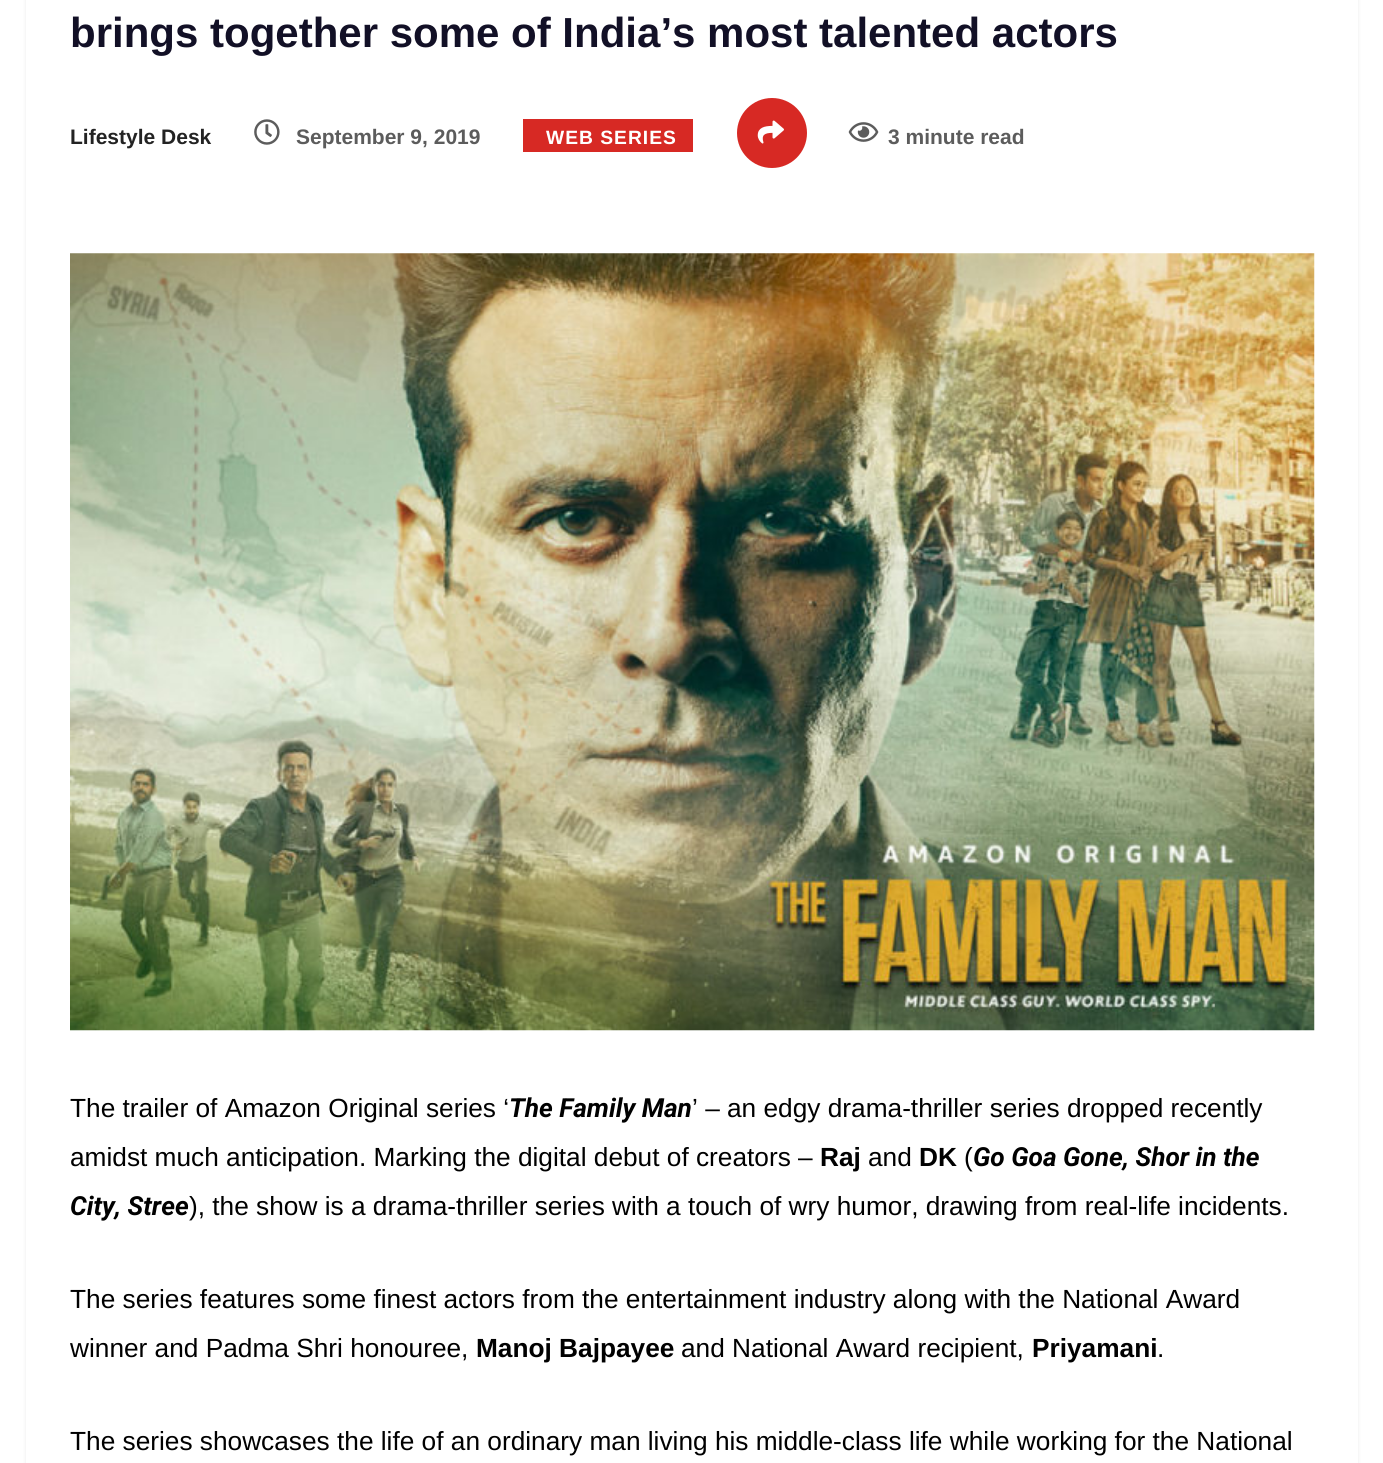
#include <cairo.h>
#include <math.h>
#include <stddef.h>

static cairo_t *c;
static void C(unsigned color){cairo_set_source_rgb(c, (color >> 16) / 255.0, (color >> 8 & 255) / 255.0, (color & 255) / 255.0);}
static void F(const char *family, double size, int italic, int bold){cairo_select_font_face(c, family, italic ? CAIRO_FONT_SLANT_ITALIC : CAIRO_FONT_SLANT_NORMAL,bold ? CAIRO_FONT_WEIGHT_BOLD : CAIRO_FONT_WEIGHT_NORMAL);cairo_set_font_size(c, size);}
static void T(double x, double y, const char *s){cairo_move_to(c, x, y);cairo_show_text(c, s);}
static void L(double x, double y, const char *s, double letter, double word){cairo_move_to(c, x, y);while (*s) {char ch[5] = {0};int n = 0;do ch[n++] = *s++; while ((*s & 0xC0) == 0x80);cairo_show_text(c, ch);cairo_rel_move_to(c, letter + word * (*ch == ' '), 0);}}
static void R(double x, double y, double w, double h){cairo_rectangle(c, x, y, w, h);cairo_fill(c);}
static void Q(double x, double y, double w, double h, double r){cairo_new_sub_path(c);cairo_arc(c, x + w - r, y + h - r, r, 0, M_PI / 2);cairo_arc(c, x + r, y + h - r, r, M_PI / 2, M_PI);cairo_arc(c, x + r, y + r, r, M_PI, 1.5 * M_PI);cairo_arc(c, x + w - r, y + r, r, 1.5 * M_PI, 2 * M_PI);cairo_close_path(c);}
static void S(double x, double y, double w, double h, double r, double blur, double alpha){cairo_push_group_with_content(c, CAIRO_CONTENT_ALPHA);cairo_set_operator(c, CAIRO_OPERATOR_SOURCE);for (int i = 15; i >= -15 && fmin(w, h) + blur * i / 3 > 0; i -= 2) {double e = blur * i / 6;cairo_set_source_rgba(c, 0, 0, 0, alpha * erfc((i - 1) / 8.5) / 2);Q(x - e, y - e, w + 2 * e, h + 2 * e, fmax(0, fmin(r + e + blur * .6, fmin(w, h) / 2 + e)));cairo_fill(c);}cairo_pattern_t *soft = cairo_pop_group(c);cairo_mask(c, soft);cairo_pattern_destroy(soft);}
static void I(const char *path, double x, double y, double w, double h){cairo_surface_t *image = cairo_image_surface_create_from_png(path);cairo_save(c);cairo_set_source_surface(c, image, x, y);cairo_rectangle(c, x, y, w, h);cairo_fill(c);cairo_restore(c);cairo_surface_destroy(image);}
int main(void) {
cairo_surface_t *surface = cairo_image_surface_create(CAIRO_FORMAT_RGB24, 1383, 1463);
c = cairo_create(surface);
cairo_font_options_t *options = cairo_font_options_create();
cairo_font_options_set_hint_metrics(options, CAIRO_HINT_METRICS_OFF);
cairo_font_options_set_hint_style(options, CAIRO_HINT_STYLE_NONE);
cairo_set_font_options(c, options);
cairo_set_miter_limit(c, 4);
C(0xffffff);
cairo_paint(c);
C(0x000000);
S(26,-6,1332,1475,0,2,.08);
C(0xffffff);
R(26,0,1332,1463);
F("Liberation Sans",42,0,1);
C(0x121026);
T(70,47,"brings together some of India’s most talented actors");
F("Liberation Sans",21,0,1);
C(0x232323);
T(70,144,"Lifestyle Desk");
I("1.png",254,119,26,26);
C(0x5c5c5c);
T(296,144,"September 9, 2019");
C(0xd72924);
R(523,119,170,33);
F("Liberation Sans",19.25,0,1);
C(0xffffff);
L(546,144,"WEB SERIES",1,0);
C(0xd72924);
cairo_new_path(c);
cairo_arc(c,772,133,35,0,2 * M_PI);
cairo_fill(c);
I("2.png",757,120,27,24);
I("3.png",848,122,31,20);
F("Liberation Sans",21,0,1);
C(0x5c5c5c);
T(888,144,"3 minute read");
I("4.png",70,253,1245,778);
F("Liberation Sans",26.25,0,0);
C(0x000000);
T(70,1117,"The trailer of Amazon Original series ‘");
F("Roboto",26.25,1,1);
T(509,1117,"The Family Man");
F("Liberation Sans",26.25,0,0);
T(692,1117,"’ – an edgy drama-thriller series dropped recently");
T(70,1166,"amidst much anticipation. Marking the digital debut of creators –");
F("Liberation Sans",26.25,0,1);
T(820,1166,"Raj");
F("Liberation Sans",26.25,0,0);
T(868,1166,"and");
F("Liberation Sans",26.25,0,1);
T(919,1166,"DK");
F("Liberation Sans",26.25,0,0);
T(964,1166,"(");
F("Roboto",26.25,1,1);
T(973,1166,"Go Goa Gone, Shor in the");
T(70,1215,"City, Stree");
F("Liberation Sans",26.25,0,0);
T(189,1215,"), the show is a drama-thriller series with a touch of wry humor, drawing from real-life incidents.");
T(70,1308,"The series features some finest actors from the entertainment industry along with the National Award");
T(70,1357,"winner and Padma Shri honouree,");
F("Liberation Sans",26.25,0,1);
T(476,1357,"Manoj Bajpayee");
F("Liberation Sans",26.25,0,0);
T(681,1357,"and National Award recipient,");
F("Liberation Sans",26.25,0,1);
T(1032,1357,"Priyamani");
F("Liberation Sans",26.25,0,0);
T(1157,1357,".");
T(70,1450,"The series showcases the life of an ordinary man living his middle-class life while working for the National");
cairo_surface_write_to_png(surface, "o.png");
cairo_font_options_destroy(options);
cairo_destroy(c);
cairo_surface_destroy(surface);
return 0;
}
